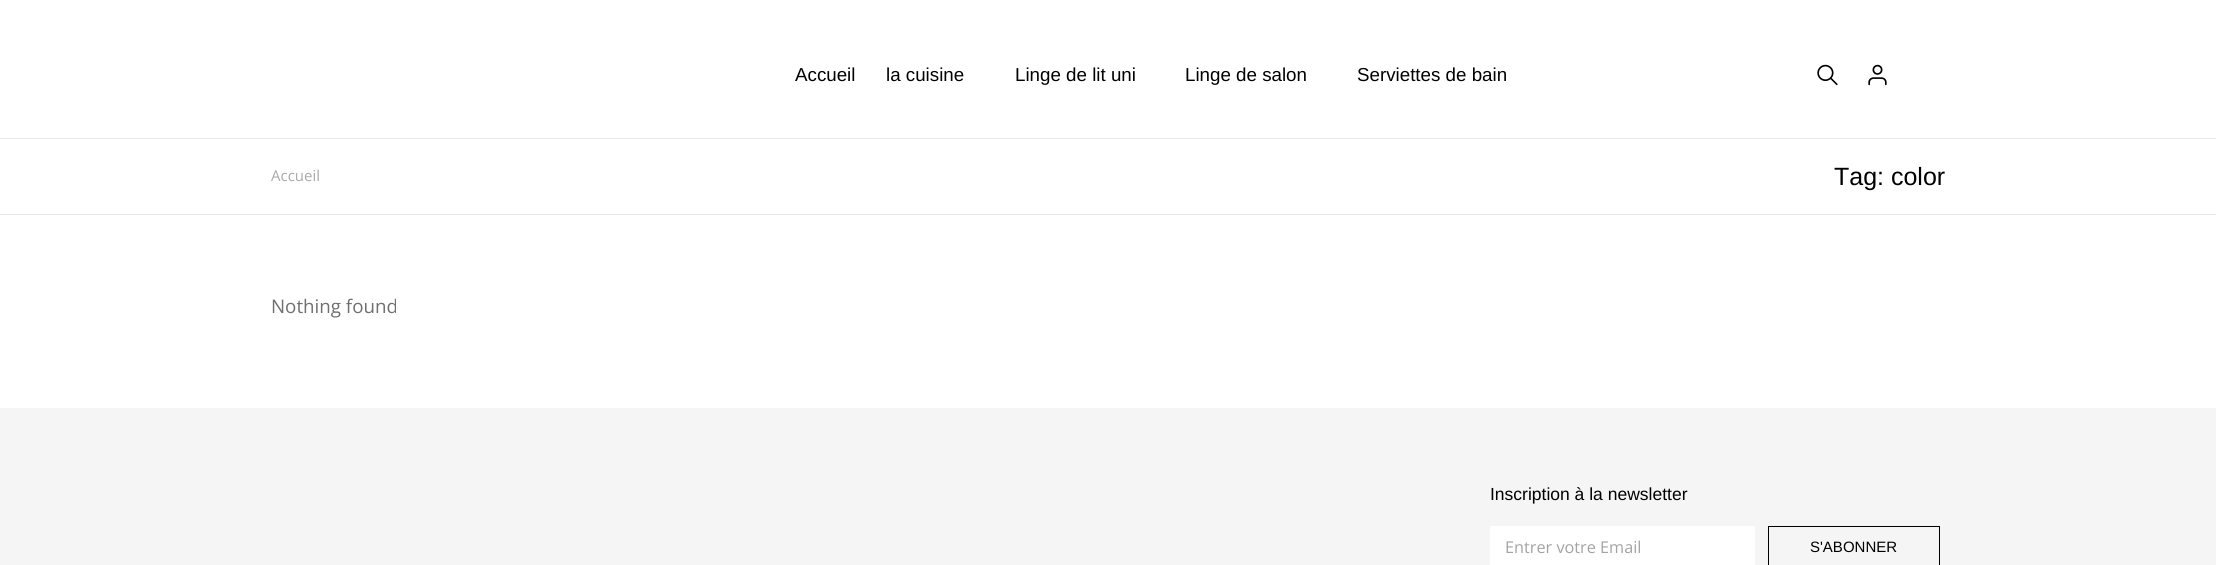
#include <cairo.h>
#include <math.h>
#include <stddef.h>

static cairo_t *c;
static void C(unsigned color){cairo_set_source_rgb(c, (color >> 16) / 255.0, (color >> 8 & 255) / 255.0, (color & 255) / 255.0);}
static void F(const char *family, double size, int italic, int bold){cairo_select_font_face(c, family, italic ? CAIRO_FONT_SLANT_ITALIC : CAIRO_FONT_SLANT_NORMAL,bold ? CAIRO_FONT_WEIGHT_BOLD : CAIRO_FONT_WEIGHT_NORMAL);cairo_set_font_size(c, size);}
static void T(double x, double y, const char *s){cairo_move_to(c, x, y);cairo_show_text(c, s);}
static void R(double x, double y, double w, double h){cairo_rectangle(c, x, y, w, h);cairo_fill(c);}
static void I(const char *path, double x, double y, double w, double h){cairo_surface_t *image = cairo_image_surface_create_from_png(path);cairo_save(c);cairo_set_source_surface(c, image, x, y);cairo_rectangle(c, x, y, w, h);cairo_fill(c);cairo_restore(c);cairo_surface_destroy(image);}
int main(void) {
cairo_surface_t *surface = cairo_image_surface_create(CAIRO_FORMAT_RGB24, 2216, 565);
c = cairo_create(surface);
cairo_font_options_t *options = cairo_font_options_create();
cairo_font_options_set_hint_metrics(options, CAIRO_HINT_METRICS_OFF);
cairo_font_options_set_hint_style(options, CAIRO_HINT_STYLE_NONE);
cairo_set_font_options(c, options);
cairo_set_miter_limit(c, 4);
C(0xffffff);
cairo_paint(c);
C(0xe8e8e8);
R(0,138,2216,1);
F("Liberation Sans",18.75,0,0);
C(0x000000);
T(795,81,"Accueil");
T(886,81,"la cuisine");
T(1015,81,"Linge de lit uni");
T(1185,81,"Linge de salon");
T(1357,81,"Serviettes de bain");
I("1.png",1817,64,21,22);
I("2.png",1868,64,19,22);
C(0xe8e8e8);
R(0,214,2216,1);
F("Open Sans",15,0,0);
C(0xaaaaaa);
T(271,181,"Accueil");
F("Liberation Sans",25,0,0);
C(0x000000);
T(1834,185,"Tag: color");
F("Open Sans",18.75,0,0);
C(0x707070);
T(271,313,"Nothing found");
C(0xf5f5f5);
R(0,408,2216,157);
F("Liberation Sans",17.5,0,0);
C(0x000000);
T(1490,500,"Inscription à la newsletter");
C(0xffffff);
R(1490,526,265,39);
F("Open Sans",16.25,0,0);
C(0xa3a3a3);
T(1505,553,"Entrer votre Email");
cairo_rectangle(c,1768.5,526.5,171,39);
C(0x000000);
cairo_set_line_width(c,1);
cairo_stroke(c);
F("Liberation Sans",15,0,0);
T(1810,552,"S'ABONNER");
cairo_surface_write_to_png(surface, "o.png");
cairo_font_options_destroy(options);
cairo_destroy(c);
cairo_surface_destroy(surface);
return 0;
}
